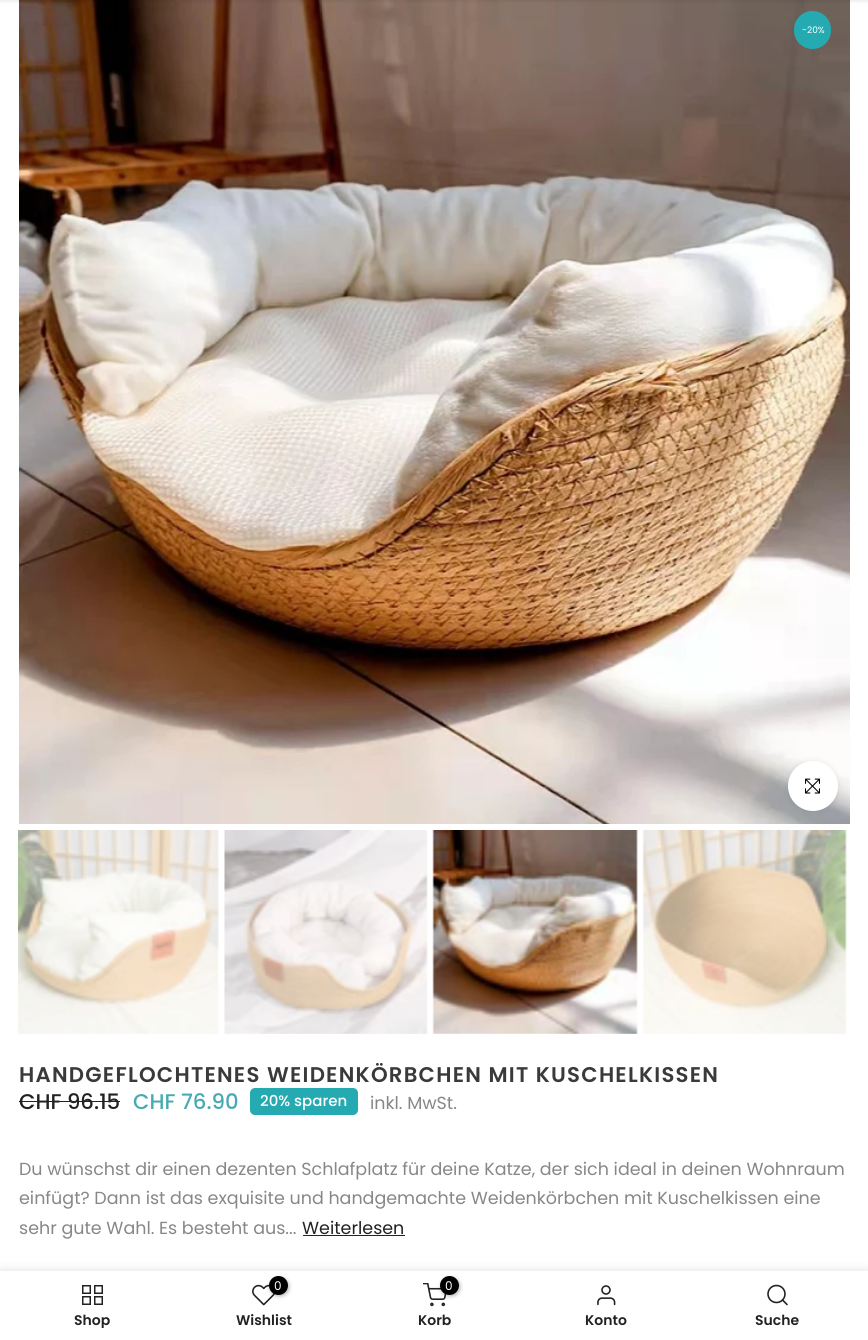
#include <cairo.h>
#include <math.h>
#include <stddef.h>

static cairo_t *c;
static void C(unsigned color){cairo_set_source_rgb(c, (color >> 16) / 255.0, (color >> 8 & 255) / 255.0, (color & 255) / 255.0);}
static void F(const char *family, double size, int italic, int bold){cairo_select_font_face(c, family, italic ? CAIRO_FONT_SLANT_ITALIC : CAIRO_FONT_SLANT_NORMAL,bold ? CAIRO_FONT_WEIGHT_BOLD : CAIRO_FONT_WEIGHT_NORMAL);cairo_set_font_size(c, size);}
static void T(double x, double y, const char *s){cairo_move_to(c, x, y);cairo_show_text(c, s);}
static void L(double x, double y, const char *s, double letter, double word){cairo_move_to(c, x, y);while (*s) {char ch[5] = {0};int n = 0;do ch[n++] = *s++; while ((*s & 0xC0) == 0x80);cairo_show_text(c, ch);cairo_rel_move_to(c, letter + word * (*ch == ' '), 0);}}
static void R(double x, double y, double w, double h){cairo_rectangle(c, x, y, w, h);cairo_fill(c);}
static void Q(double x, double y, double w, double h, double r){cairo_new_sub_path(c);cairo_arc(c, x + w - r, y + h - r, r, 0, M_PI / 2);cairo_arc(c, x + r, y + h - r, r, M_PI / 2, M_PI);cairo_arc(c, x + r, y + r, r, M_PI, 1.5 * M_PI);cairo_arc(c, x + w - r, y + r, r, 1.5 * M_PI, 2 * M_PI);cairo_close_path(c);}
static void S(double x, double y, double w, double h, double r, double blur, double alpha){cairo_push_group_with_content(c, CAIRO_CONTENT_ALPHA);cairo_set_operator(c, CAIRO_OPERATOR_SOURCE);for (int i = 15; i >= -15 && fmin(w, h) + blur * i / 3 > 0; i -= 2) {double e = blur * i / 6;cairo_set_source_rgba(c, 0, 0, 0, alpha * erfc((i - 1) / 8.5) / 2);Q(x - e, y - e, w + 2 * e, h + 2 * e, fmax(0, fmin(r + e + blur * .6, fmin(w, h) / 2 + e)));cairo_fill(c);}cairo_pattern_t *soft = cairo_pop_group(c);cairo_mask(c, soft);cairo_pattern_destroy(soft);}
static void I(const char *path, double x, double y, double w, double h){cairo_surface_t *image = cairo_image_surface_create_from_png(path);cairo_save(c);cairo_set_source_surface(c, image, x, y);cairo_rectangle(c, x, y, w, h);cairo_fill(c);cairo_restore(c);cairo_surface_destroy(image);}
int main(void) {
cairo_surface_t *surface = cairo_image_surface_create(CAIRO_FORMAT_RGB24, 868, 1340);
c = cairo_create(surface);
cairo_font_options_t *options = cairo_font_options_create();
cairo_font_options_set_hint_metrics(options, CAIRO_HINT_METRICS_OFF);
cairo_font_options_set_hint_style(options, CAIRO_HINT_STYLE_NONE);
cairo_set_font_options(c, options);
cairo_set_miter_limit(c, 4);
C(0xffffff);
cairo_paint(c);
I("1.png",19,0,831,824);
C(0x000000);
S(0,-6,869,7,0,2,.1);
C(0x26aab2);
Q(794,11,37,38,18.5);
cairo_fill(c);
F("Poppins",9,0,0);
C(0xffffff);
T(802,33,"-20%");
C(0x000000);
S(788,761,50,50,25,3,.09);
C(0xffffff);
cairo_arc(c,813,786,25,0,2 * M_PI);
cairo_fill(c);
I("2.png",805,778,15,16);
I("3.png",18,830,201,204);
I("4.png",224,830,204,204);
I("5.png",432,830,206,204);
I("6.png",642,830,205,204);
F("Poppins SemiBold",21.25,0,0);
C(0x3a3a3a);
L(19,1082,"HANDGEFLOCHTENES WEIDENKÖRBCHEN MIT KUSCHELKISSEN",1.25,0);
F("Poppins Medium",21.25,0,0);
C(0x222222);
T(19,1109,"CHF 96.15");
R(19,1101,101,1);
C(0x47aab2);
T(133,1109,"CHF 76.90");
C(0x26aab2);
Q(250,1088,108,27,5);
cairo_fill(c);
F("Poppins Medium",15,0,0);
C(0xffffff);
T(260,1106,"20% sparen");
F("Poppins",17.5,0,0);
C(0x878787);
T(370,1109,"inkl. MwSt.");
T(19,1175,"Du wünschst dir einen dezenten Schlafplatz für deine Katze, der sich ideal in deinen Wohnraum");
T(19,1204,"einfügt? Dann ist das exquisite und handgemachte Weidenkörbchen mit Kuschelkissen eine");
T(19,1234,"sehr gute Wahl. Es besteht aus...");
C(0x222222);
T(302,1234,"Weiterlesen");
R(303,1235,102,1);
C(0x000000);
S(0,1271,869,69,0,5.5,.12);
C(0xffffff);
R(0,1271,868,69);
cairo_rectangle(c,82.75,1285.75,7.5,7.5);
C(0x222222);
cairo_set_line_width(c,1.5);
cairo_stroke(c);
cairo_rectangle(c,94.75,1285.75,7.5,7.5);
cairo_stroke(c);
cairo_rectangle(c,82.75,1296.75,7.5,7.5);
cairo_stroke(c);
cairo_rectangle(c,94.75,1296.75,7.5,7.5);
cairo_stroke(c);
cairo_save(c);
cairo_rectangle(c,19,1314,146,14);
cairo_clip(c);
F("Poppins SemiBold",14,0,0);
T(74,1325,"Shop");
cairo_restore(c);
I("7.png",252,1284,23,22);
C(0x000000);
S(270,1278,19,18,9,2,.3);
C(0x000000);
cairo_arc(c,278.5,1285.5,9.5,0,2 * M_PI);
cairo_fill(c);
F("Poppins",12,0,0);
C(0xffffff);
T(274,1290,"0");
F("Poppins SemiBold",14,0,0);
C(0x222222);
T(236,1325,"Wishlist");
I("8.png",423,1283,24,24);
C(0x000000);
S(441,1278,19,18,9,2,.3);
C(0x000000);
cairo_arc(c,449.5,1285.5,9.5,0,2 * M_PI);
cairo_fill(c);
F("Poppins",12,0,0);
C(0xffffff);
T(445,1290,"0");
F("Poppins SemiBold",14,0,0);
C(0x222222);
T(418,1325,"Korb");
I("9.png",597,1285,19,21);
T(585,1325,"Konto");
cairo_new_path(c);
cairo_arc(c,776.5,1294,8.5,0,2 * M_PI);
cairo_set_line_width(c,1.6);
cairo_stroke(c);
cairo_new_path(c);
cairo_move_to(c,787,1304.5);
cairo_line_to(c,782.5,1300);
cairo_set_line_cap(c,CAIRO_LINE_CAP_ROUND);
cairo_set_line_join(c,CAIRO_LINE_JOIN_ROUND);
cairo_stroke(c);
T(755,1325,"Suche");
cairo_surface_write_to_png(surface, "o.png");
cairo_font_options_destroy(options);
cairo_destroy(c);
cairo_surface_destroy(surface);
return 0;
}
